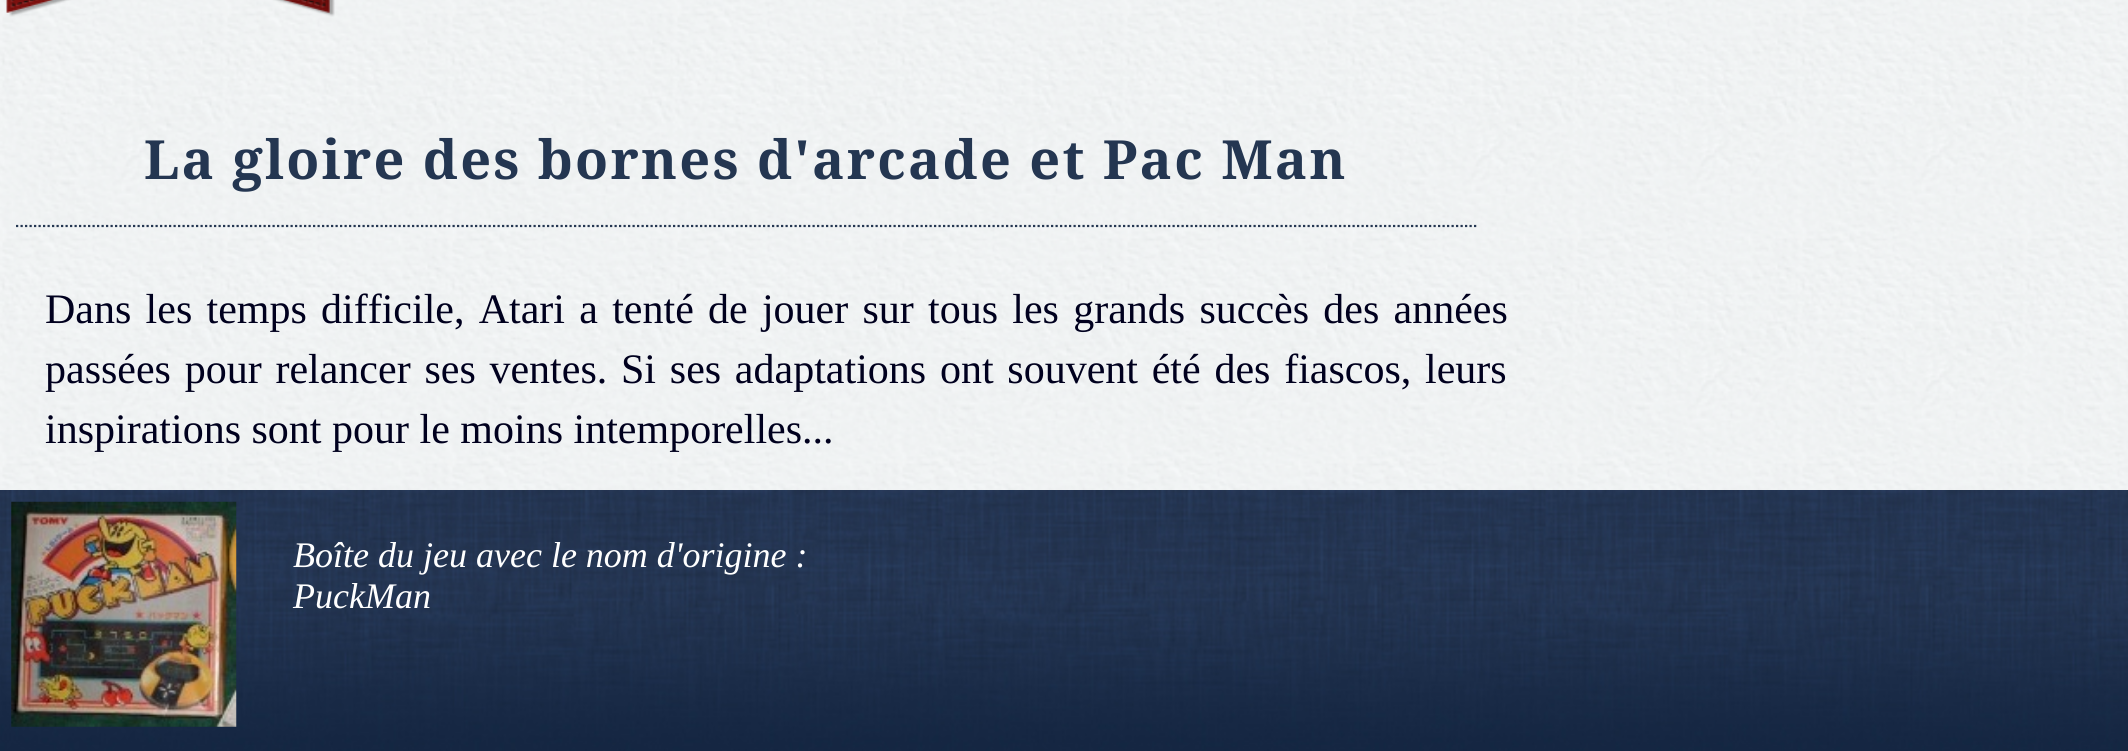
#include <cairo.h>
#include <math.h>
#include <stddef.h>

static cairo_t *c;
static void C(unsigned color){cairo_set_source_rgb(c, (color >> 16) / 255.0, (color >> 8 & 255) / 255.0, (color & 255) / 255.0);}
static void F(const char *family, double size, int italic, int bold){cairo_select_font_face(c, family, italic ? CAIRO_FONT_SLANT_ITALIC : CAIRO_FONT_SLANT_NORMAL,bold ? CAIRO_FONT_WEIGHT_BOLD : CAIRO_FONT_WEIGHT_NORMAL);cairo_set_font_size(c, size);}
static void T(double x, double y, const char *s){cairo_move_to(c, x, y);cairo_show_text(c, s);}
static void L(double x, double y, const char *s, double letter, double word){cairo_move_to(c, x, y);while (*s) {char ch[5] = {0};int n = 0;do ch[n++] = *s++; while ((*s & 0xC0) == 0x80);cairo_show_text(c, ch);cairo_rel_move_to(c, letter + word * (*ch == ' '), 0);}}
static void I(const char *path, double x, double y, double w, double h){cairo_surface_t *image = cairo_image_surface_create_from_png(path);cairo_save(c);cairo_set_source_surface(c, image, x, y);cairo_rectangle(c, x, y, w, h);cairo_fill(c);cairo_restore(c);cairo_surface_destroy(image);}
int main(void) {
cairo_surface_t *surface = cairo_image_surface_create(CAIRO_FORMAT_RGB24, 2128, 751);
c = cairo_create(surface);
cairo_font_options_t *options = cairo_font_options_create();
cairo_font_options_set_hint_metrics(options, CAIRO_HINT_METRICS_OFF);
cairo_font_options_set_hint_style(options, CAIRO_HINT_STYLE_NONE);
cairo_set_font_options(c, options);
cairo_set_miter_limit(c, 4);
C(0xffffff);
cairo_paint(c);
I("1.png",0,0,2128,490);
I("2.png",6,0,329,17);
cairo_new_path(c);
cairo_move_to(c,16,226);
cairo_line_to(c,1478,226);
C(0x243651);
cairo_set_line_width(c,2.2);
cairo_set_dash(c,(double[]){2.25,2.25},2,0);
cairo_stroke(c);
F("Noto Serif",54,0,1);
L(144,179,"La gloire des bornes d'arcade et Pac Man",2.25,0);
F("Liberation Serif",42,0,0);
C(0x00001e);
L(45,323,"Dans les temps difficile, Atari a tenté de jouer sur tous les grands succès des années",0,3.75);
L(45,383,"passées pour relancer ses ventes. Si ses adaptations ont souvent été des fiascos, leurs",0,3.25);
T(45,443,"inspirations sont pour le moins intemporelles...");
I("3.png",0,490,2128,261);
I("4.png",11,501,226,226);
F("Liberation Serif",36,1,0);
C(0xffffff);
T(293,567,"Boîte du jeu avec le nom d'origine :");
T(293,608,"PuckMan");
cairo_surface_write_to_png(surface, "o.png");
cairo_font_options_destroy(options);
cairo_destroy(c);
cairo_surface_destroy(surface);
return 0;
}
